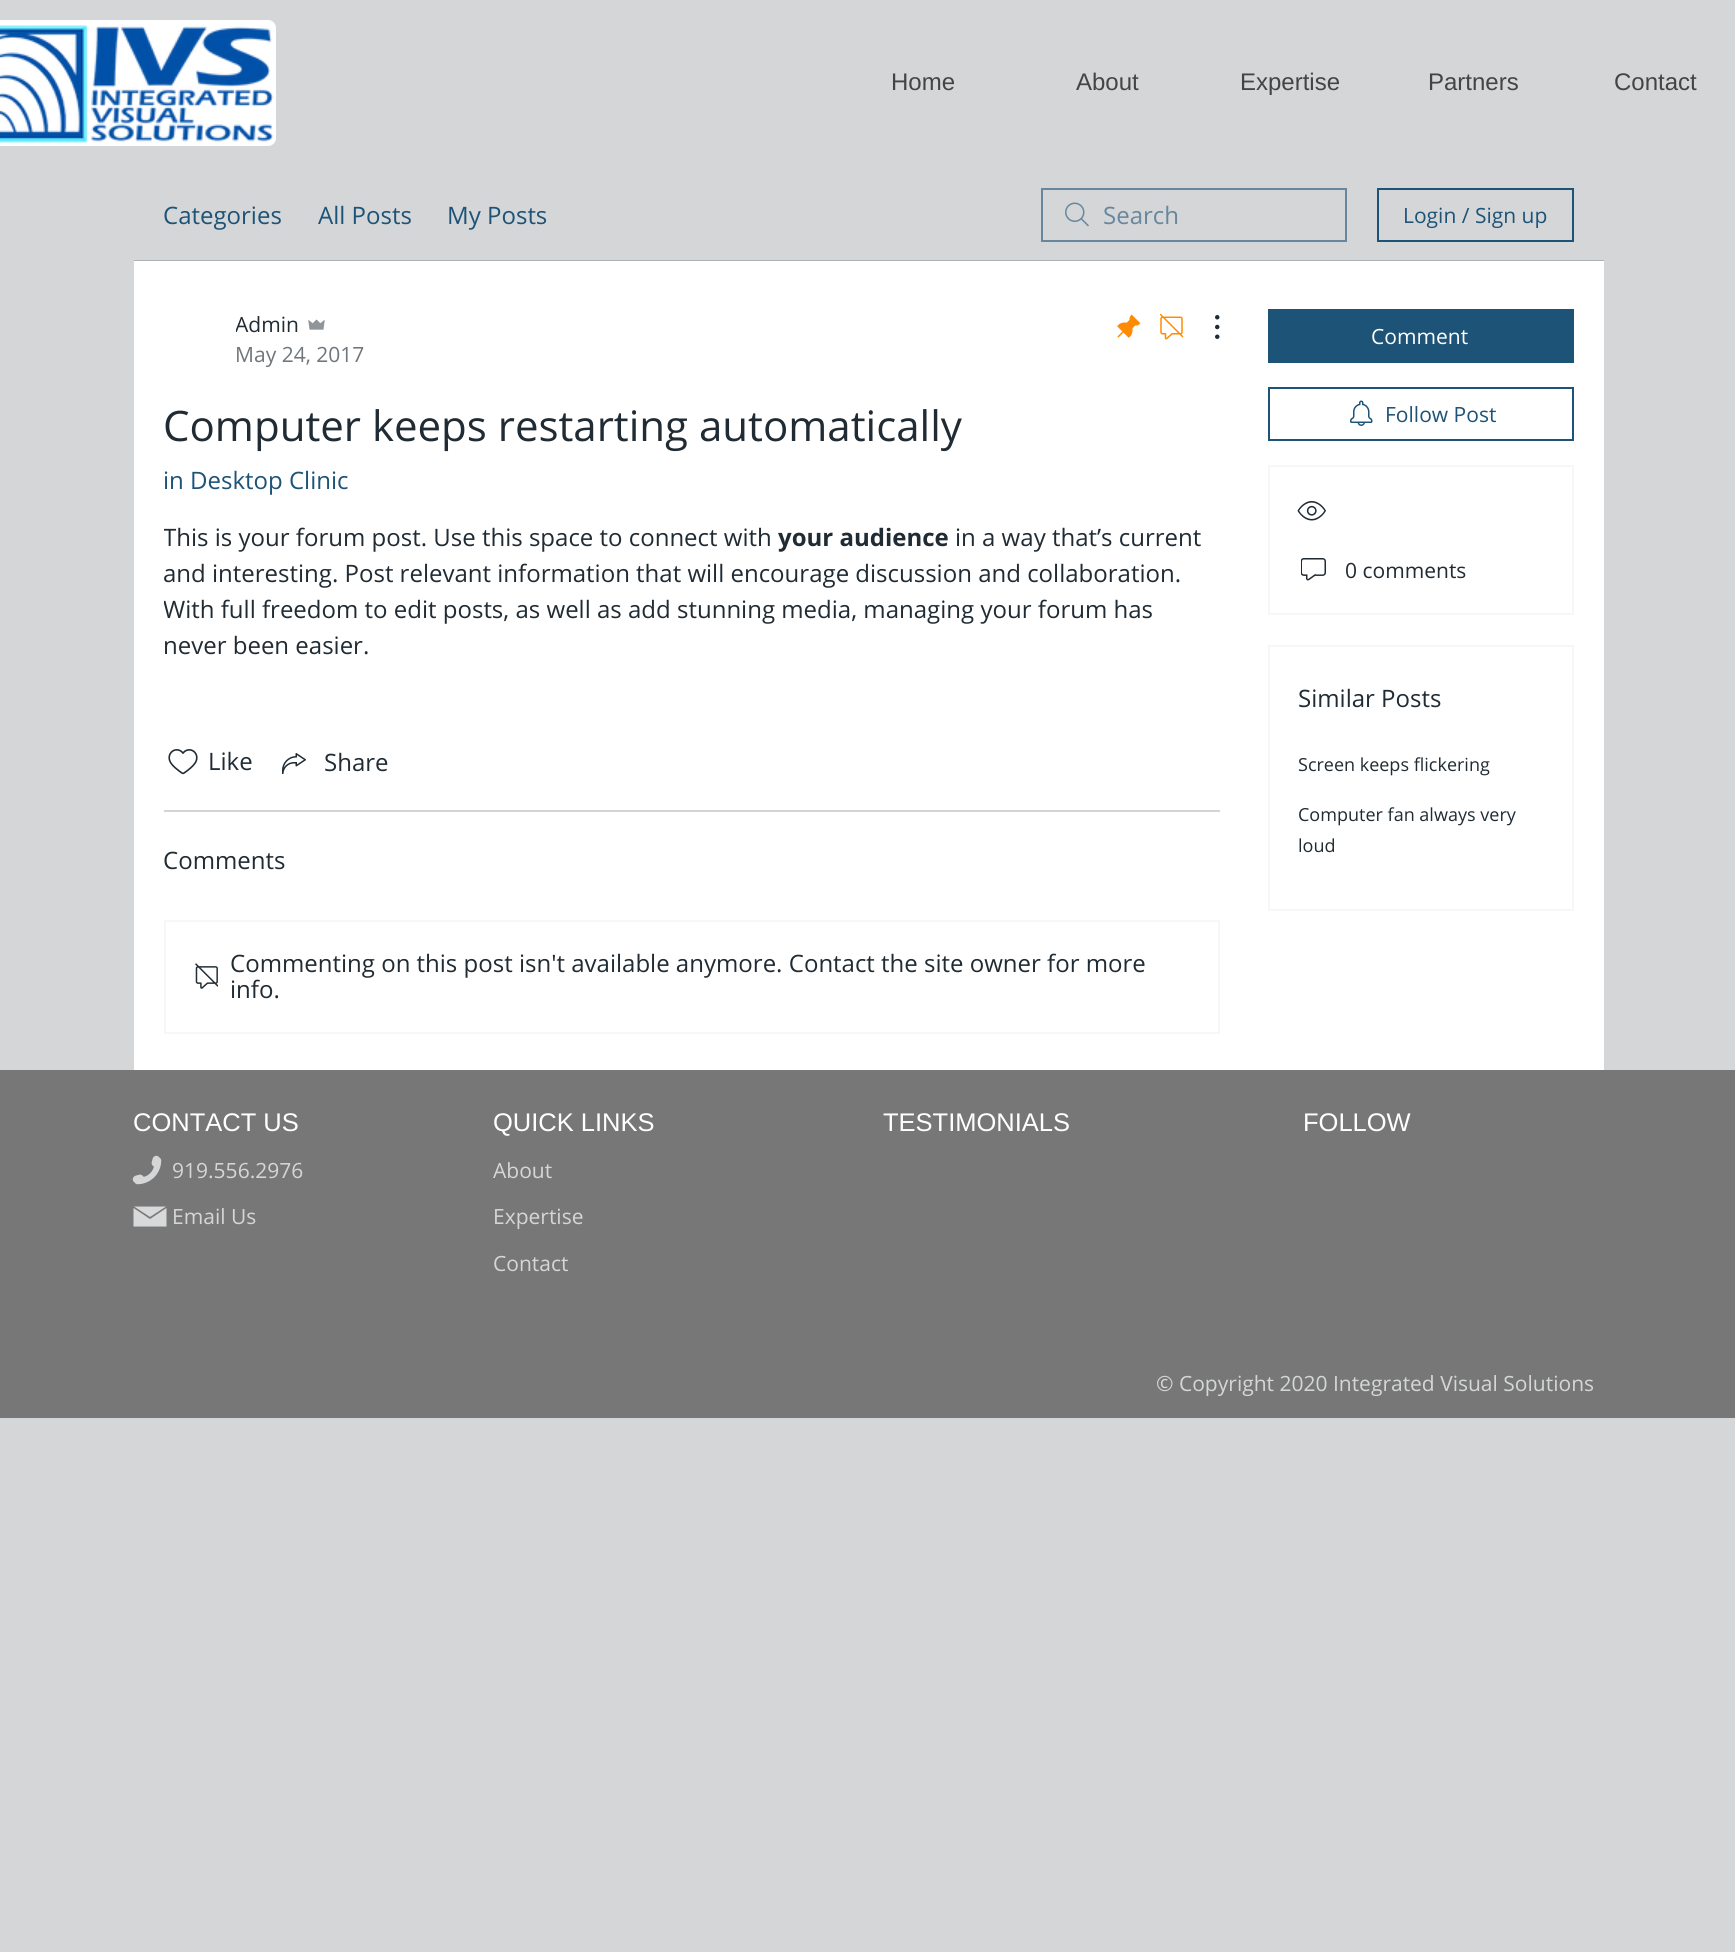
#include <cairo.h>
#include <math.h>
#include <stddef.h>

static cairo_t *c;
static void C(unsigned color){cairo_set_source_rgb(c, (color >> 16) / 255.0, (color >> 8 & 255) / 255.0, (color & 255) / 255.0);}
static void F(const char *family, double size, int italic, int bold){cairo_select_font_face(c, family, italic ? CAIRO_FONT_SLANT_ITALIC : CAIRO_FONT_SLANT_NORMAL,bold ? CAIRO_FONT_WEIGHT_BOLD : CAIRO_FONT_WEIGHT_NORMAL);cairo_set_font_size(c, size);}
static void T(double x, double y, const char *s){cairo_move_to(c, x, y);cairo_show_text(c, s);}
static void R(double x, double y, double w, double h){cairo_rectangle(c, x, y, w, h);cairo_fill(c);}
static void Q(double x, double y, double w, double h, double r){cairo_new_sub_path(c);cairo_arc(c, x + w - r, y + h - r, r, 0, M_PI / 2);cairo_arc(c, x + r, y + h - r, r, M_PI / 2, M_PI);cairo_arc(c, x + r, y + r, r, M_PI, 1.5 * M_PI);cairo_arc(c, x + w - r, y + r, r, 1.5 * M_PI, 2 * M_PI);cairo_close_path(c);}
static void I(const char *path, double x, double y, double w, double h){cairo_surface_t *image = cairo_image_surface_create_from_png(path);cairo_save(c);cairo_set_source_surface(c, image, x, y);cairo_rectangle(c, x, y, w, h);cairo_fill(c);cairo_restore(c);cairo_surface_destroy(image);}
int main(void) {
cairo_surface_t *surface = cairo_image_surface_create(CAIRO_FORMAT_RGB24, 1735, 1952);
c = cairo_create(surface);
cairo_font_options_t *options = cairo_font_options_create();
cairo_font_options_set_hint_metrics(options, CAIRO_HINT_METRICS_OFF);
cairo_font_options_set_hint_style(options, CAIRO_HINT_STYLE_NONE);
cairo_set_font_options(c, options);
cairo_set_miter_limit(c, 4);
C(0xd4d6d7);
cairo_paint(c);
C(0xffffff);
Q(-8,20,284,126,8);
cairo_fill(c);
I("1.png",0,25,274,118);
F("Liberation Sans",24,0,0);
C(0x444444);
T(891,90,"Home");
T(1076,90,"About");
T(1240,90,"Expertise");
T(1428,90,"Partners");
T(1614,90,"Contact");
C(0xaeb0b2);
R(134,260,1470,1);
F("Open Sans",24,0,0);
C(0x1d5377);
T(163,224,"Categories");
T(318,224,"All Posts");
T(447,224,"My Posts");
I("2.png",1065,202,24,25);
cairo_rectangle(c,1042,189,304,52);
C(0x66879d);
cairo_stroke(c);
T(1103,224,"Search");
cairo_rectangle(c,1378,189,195,52);
C(0x1d5377);
cairo_stroke(c);
F("Open Sans",21,0,0);
T(1403,223,"Login / Sign up");
C(0xffffff);
R(134,261,1470,809);
cairo_save(c);
cairo_rectangle(c,236,309,63,30);
cairo_clip(c);
C(0x202b33);
T(235,332,"Admin");
cairo_restore(c);
I("3.png",308,319,17,11);
C(0x70777c);
T(235,362,"May 24, 2017");
I("4.png",1117,314,24,24);
I("5.png",1160,314,24,26);
I("6.png",1215,315,5,24);
F("Open Sans",42,0,0);
C(0x202b33);
T(163,441,"Computer keeps restarting automatically");
F("Open Sans",24,0,0);
C(0x1d5377);
T(163,489,"in Desktop Clinic");
cairo_save(c);
cairo_rectangle(c,164,519,1056,180);
cairo_clip(c);
C(0x202b33);
T(163,546,"This is your forum post. Use this space to connect with");
cairo_restore(c);
F("Open Sans",24,0,1);
C(0x202b33);
T(778,546,"your audience");
F("Open Sans",24,0,0);
T(955,546,"in a way that’s current");
T(163,582,"and interesting. Post relevant information that will encourage discussion and collaboration.");
cairo_save(c);
cairo_rectangle(c,164,519,1056,180);
cairo_clip(c);
T(163,618,"With full freedom to edit posts, as well as add stunning media, managing your forum has");
cairo_restore(c);
T(163,654,"never been easier.");
I("7.png",168,749,30,26);
T(208,770,"Like");
I("8.png",282,753,24,21);
T(324,771,"Share");
C(0xd2d5d6);
R(164,810,1056,2);
C(0x202b33);
T(163,869,"Comments");
cairo_rectangle(c,165,921,1054,112);
C(0xf6f7f7);
cairo_stroke(c);
I("9.png",195,963,23,26);
C(0x202b33);
T(230,972,"Commenting on this post isn't available anymore. Contact the site owner for more");
T(230,998,"info.");
C(0x1d5377);
R(1268,309,306,54);
F("Open Sans",21,0,0);
C(0xffffff);
T(1371,344,"Comment");
cairo_rectangle(c,1269,388,304,52);
C(0x1d5377);
cairo_stroke(c);
I("10.png",1350,400,23,26);
T(1385,422,"Follow Post");
cairo_rectangle(c,1269,466,304,148);
C(0xf6f7f7);
cairo_stroke(c);
I("11.png",1297,501,29,20);
I("12.png",1301,558,25,23);
C(0x202b33);
T(1345,578,"0 comments");
cairo_rectangle(c,1269,646,304,264);
C(0xf6f7f7);
cairo_stroke(c);
F("Open Sans",24,0,0);
C(0x202b33);
T(1298,707,"Similar Posts");
F("Open Sans",18,0,0);
T(1298,771,"Screen keeps flickering");
T(1298,821,"Computer fan always very");
T(1298,852,"loud");
C(0x777777);
R(0,1070,1735,348);
F("Liberation Sans",25.5,0,0);
C(0xffffff);
T(133,1131,"CONTACT US");
T(493,1131,"QUICK LINKS");
T(883,1131,"TESTIMONIALS");
T(1303,1131,"FOLLOW");
I("13.png",132,1155,30,30);
F("Open Sans",21,0,0);
C(0xd4d6d7);
T(172,1178,"919.556.2976");
T(493,1178,"About");
C(0xd7d9da);
cairo_new_path(c);
cairo_move_to(c,150,1217);
cairo_line_to(c,134,1206.5);
cairo_line_to(c,166,1206.5);
cairo_close_path(c);
cairo_move_to(c,166.5,1208);
cairo_line_to(c,150,1219);
cairo_line_to(c,133.5,1208);
cairo_line_to(c,133.5,1226.5);
cairo_line_to(c,166.5,1226.5);
cairo_close_path(c);
cairo_fill(c);
C(0xd4d6d7);
T(172,1224,"Email Us");
T(493,1224,"Expertise");
T(493,1271,"Contact");
T(1156,1391,"© Copyright 2020 Integrated Visual Solutions");
cairo_surface_write_to_png(surface, "o.png");
cairo_font_options_destroy(options);
cairo_destroy(c);
cairo_surface_destroy(surface);
return 0;
}
